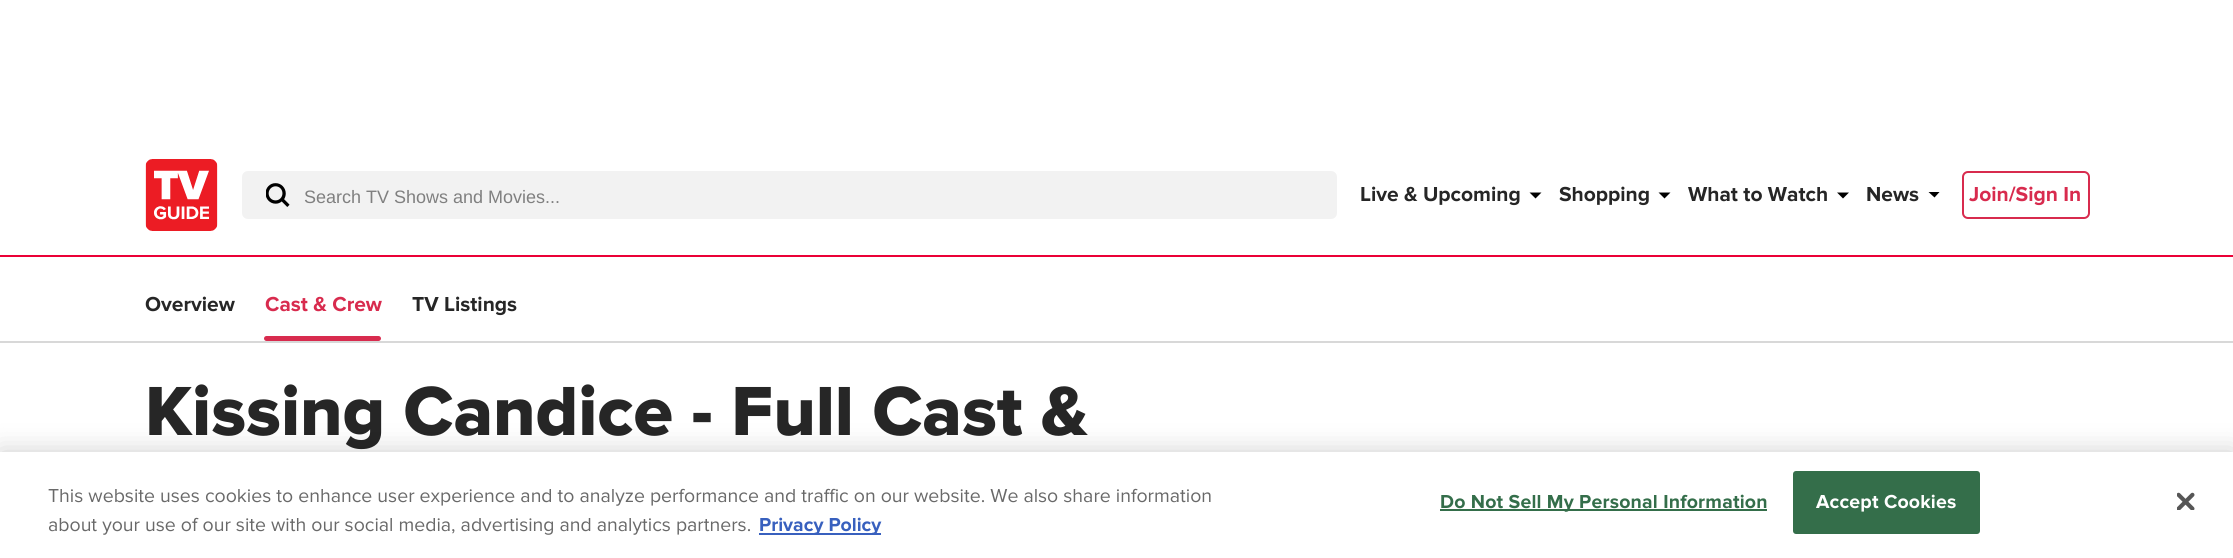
#include <cairo.h>
#include <math.h>
#include <stddef.h>

static cairo_t *c;
static void C(unsigned color){cairo_set_source_rgb(c, (color >> 16) / 255.0, (color >> 8 & 255) / 255.0, (color & 255) / 255.0);}
static void F(const char *family, double size, int italic, int bold){cairo_select_font_face(c, family, italic ? CAIRO_FONT_SLANT_ITALIC : CAIRO_FONT_SLANT_NORMAL,bold ? CAIRO_FONT_WEIGHT_BOLD : CAIRO_FONT_WEIGHT_NORMAL);cairo_set_font_size(c, size);}
static void T(double x, double y, const char *s){cairo_move_to(c, x, y);cairo_show_text(c, s);}
static void L(double x, double y, const char *s, double letter, double word){cairo_move_to(c, x, y);while (*s) {char ch[5] = {0};int n = 0;do ch[n++] = *s++; while ((*s & 0xC0) == 0x80);cairo_show_text(c, ch);cairo_rel_move_to(c, letter + word * (*ch == ' '), 0);}}
static void R(double x, double y, double w, double h){cairo_rectangle(c, x, y, w, h);cairo_fill(c);}
static void Q(double x, double y, double w, double h, double r){cairo_new_sub_path(c);cairo_arc(c, x + w - r, y + h - r, r, 0, M_PI / 2);cairo_arc(c, x + r, y + h - r, r, M_PI / 2, M_PI);cairo_arc(c, x + r, y + r, r, M_PI, 1.5 * M_PI);cairo_arc(c, x + w - r, y + r, r, 1.5 * M_PI, 2 * M_PI);cairo_close_path(c);}
static void S(double x, double y, double w, double h, double r, double blur, double alpha){cairo_push_group_with_content(c, CAIRO_CONTENT_ALPHA);cairo_set_operator(c, CAIRO_OPERATOR_SOURCE);for (int i = 15; i >= -15 && fmin(w, h) + blur * i / 3 > 0; i -= 2) {double e = blur * i / 6;cairo_set_source_rgba(c, 0, 0, 0, alpha * erfc((i - 1) / 8.5) / 2);Q(x - e, y - e, w + 2 * e, h + 2 * e, fmax(0, fmin(r + e + blur * .6, fmin(w, h) / 2 + e)));cairo_fill(c);}cairo_pattern_t *soft = cairo_pop_group(c);cairo_mask(c, soft);cairo_pattern_destroy(soft);}
static void I(const char *path, double x, double y, double w, double h){cairo_surface_t *image = cairo_image_surface_create_from_png(path);cairo_save(c);cairo_set_source_surface(c, image, x, y);cairo_rectangle(c, x, y, w, h);cairo_fill(c);cairo_restore(c);cairo_surface_destroy(image);}
int main(void) {
cairo_surface_t *surface = cairo_image_surface_create(CAIRO_FORMAT_RGB24, 2233, 558);
c = cairo_create(surface);
cairo_font_options_t *options = cairo_font_options_create();
cairo_font_options_set_hint_metrics(options, CAIRO_HINT_METRICS_OFF);
cairo_font_options_set_hint_style(options, CAIRO_HINT_STYLE_NONE);
cairo_set_font_options(c, options);
cairo_set_miter_limit(c, 4);
C(0xffffff);
cairo_paint(c);
C(0xeb0036);
R(0,255,2233,2);
I("1.png",145,159,73,72);
C(0xf2f2f2);
Q(242,171,1095,48,6);
cairo_fill(c);
I("2.png",266,183,24,24);
F("Liberation Sans",18,0,0);
C(0x808080);
T(304,203,"Search TV Shows and Movies...");
F("Proxima Nova",21,0,1);
C(0x262626);
T(1360,201,"Live & Upcoming");
C(0x000000);
cairo_set_fill_rule(c,CAIRO_FILL_RULE_EVEN_ODD);
cairo_new_path(c);
cairo_move_to(c,1529.5,192.5);
cairo_line_to(c,1535.5,198.5);
cairo_line_to(c,1541.5,192.5);
cairo_close_path(c);
cairo_fill(c);
C(0x262626);
T(1559,201,"Shopping");
C(0x000000);
cairo_new_path(c);
cairo_move_to(c,1658.5,192.5);
cairo_line_to(c,1664.5,198.5);
cairo_line_to(c,1670.5,192.5);
cairo_close_path(c);
cairo_fill(c);
C(0x262626);
T(1688,201,"What to Watch");
C(0x000000);
cairo_new_path(c);
cairo_move_to(c,1837,192.5);
cairo_line_to(c,1843,198.5);
cairo_line_to(c,1849,192.5);
cairo_close_path(c);
cairo_fill(c);
C(0x262626);
T(1866,201,"News");
C(0x000000);
cairo_set_fill_rule(c,CAIRO_FILL_RULE_WINDING);
cairo_new_path(c);
cairo_move_to(c,1939.5,192);
cairo_line_to(c,1934.5,197.5);
cairo_line_to(c,1928.5,192);
cairo_close_path(c);
cairo_fill(c);
Q(1963,172,126,46,5);
C(0xd82b4e);
cairo_stroke(c);
T(1969,201,"Join/Sign In");
C(0xd8d8d8);
R(0,341,2233,2);
C(0x262626);
T(145,311,"Overview");
C(0xd82b4e);
T(265,311,"Cast & Crew");
Q(264,336,117,5,2.5);
cairo_fill(c);
C(0x262626);
T(412,311,"TV Listings");
F("Proxima Nova ExtraBold",72,0,0);
T(145,435,"Kissing Candice - Full Cast &");
C(0x000000);
S(0,452,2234,106,0,13.5,.2);
C(0xffffff);
R(0,452,2233,106);
F("Proxima Nova",19.5,0,0);
C(0x696969);
T(48,502,"This website uses cookies to enhance user experience and to analyze performance and traffic on our website. We also share information");
T(48,531,"about your use of our site with our social media, advertising and analytics partners.");
C(0x3860be);
R(759,533,122,2);
F("Proxima Nova",19.5,0,1);
T(759,531,"Privacy Policy");
C(0x346e4a);
R(1440,509,327,2);
L(1440,508,"Do Not Sell My Personal Information",.2,0);
Q(1794,472,185,61,2);
cairo_fill_preserve(c);
cairo_stroke(c);
C(0xffffff);
L(1816,508,"Accept Cookies",.2,0);
I("3.png",2177,492,18,18);
cairo_surface_write_to_png(surface, "o.png");
cairo_font_options_destroy(options);
cairo_destroy(c);
cairo_surface_destroy(surface);
return 0;
}
